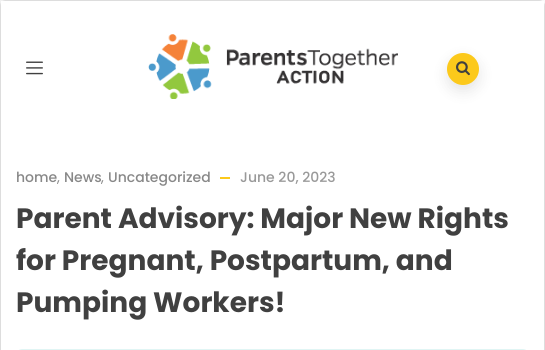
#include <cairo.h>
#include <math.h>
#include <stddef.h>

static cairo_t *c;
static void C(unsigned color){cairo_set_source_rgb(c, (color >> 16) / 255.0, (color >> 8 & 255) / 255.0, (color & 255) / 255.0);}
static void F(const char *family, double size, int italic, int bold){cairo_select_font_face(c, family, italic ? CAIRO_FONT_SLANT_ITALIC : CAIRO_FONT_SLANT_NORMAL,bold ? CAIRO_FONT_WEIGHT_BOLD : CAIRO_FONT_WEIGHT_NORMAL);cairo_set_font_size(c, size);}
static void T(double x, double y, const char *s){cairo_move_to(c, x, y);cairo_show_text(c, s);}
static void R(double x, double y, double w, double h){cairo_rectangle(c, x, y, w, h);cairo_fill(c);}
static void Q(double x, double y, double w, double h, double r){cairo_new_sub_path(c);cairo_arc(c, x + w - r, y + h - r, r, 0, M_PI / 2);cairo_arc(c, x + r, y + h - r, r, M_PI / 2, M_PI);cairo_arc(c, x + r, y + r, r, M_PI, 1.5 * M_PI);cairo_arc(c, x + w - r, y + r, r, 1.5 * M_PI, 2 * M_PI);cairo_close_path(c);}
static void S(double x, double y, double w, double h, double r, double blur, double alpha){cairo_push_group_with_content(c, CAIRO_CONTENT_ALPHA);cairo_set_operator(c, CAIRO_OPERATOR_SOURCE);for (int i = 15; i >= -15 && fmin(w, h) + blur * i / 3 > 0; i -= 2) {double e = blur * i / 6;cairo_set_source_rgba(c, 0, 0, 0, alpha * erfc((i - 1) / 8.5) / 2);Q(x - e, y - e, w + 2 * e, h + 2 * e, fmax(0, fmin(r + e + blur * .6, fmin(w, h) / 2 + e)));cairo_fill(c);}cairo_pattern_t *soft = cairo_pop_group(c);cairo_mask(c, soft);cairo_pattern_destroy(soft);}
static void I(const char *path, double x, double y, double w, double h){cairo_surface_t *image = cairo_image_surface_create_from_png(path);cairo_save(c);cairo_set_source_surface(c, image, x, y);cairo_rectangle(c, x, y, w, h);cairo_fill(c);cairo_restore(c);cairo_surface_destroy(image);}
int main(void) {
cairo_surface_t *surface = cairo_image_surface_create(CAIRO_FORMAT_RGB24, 545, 350);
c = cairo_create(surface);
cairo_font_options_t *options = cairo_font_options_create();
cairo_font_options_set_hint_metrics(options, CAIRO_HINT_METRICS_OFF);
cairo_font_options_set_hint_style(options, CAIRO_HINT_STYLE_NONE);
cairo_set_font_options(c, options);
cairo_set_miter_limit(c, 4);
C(0xffffff);
cairo_paint(c);
I("1.png",0,0,545,6);
Q(.5,.5,544,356,5.5);
C(0xdddddd);
cairo_set_line_width(c,1);
cairo_stroke(c);
C(0xffffff);
R(1,1,543,5);
I("2.png",26,61,17,14);
I("3.png",148,34,250,65);
C(0x000000);
S(447,59,32,32,16,7,.1);
C(0xfcc91b);
cairo_arc(c,463,69,16,0,2 * M_PI);
cairo_fill(c);
I("4.png",456,61,14,15);
F("Poppins Medium",14,0,0);
C(0x888888);
T(16,182,"home");
T(64,182,"News");
T(108,182,"Uncategorized");
C(0xfcc91b);
R(220,177,10,2);
C(0x999999);
T(240,182,"June 20, 2023");
F("Poppins",14,0,0);
C(0x888888);
T(57,182,",");
T(101,182,",");
F("Poppins",28,0,1);
C(0x404040);
T(16,228,"Parent Advisory: Major New Rights");
T(16,270,"for Pregnant, Postpartum, and");
T(16,312,"Pumping Workers!");
I("5.png",19,349,507,1);
cairo_surface_write_to_png(surface, "o.png");
cairo_font_options_destroy(options);
cairo_destroy(c);
cairo_surface_destroy(surface);
return 0;
}
